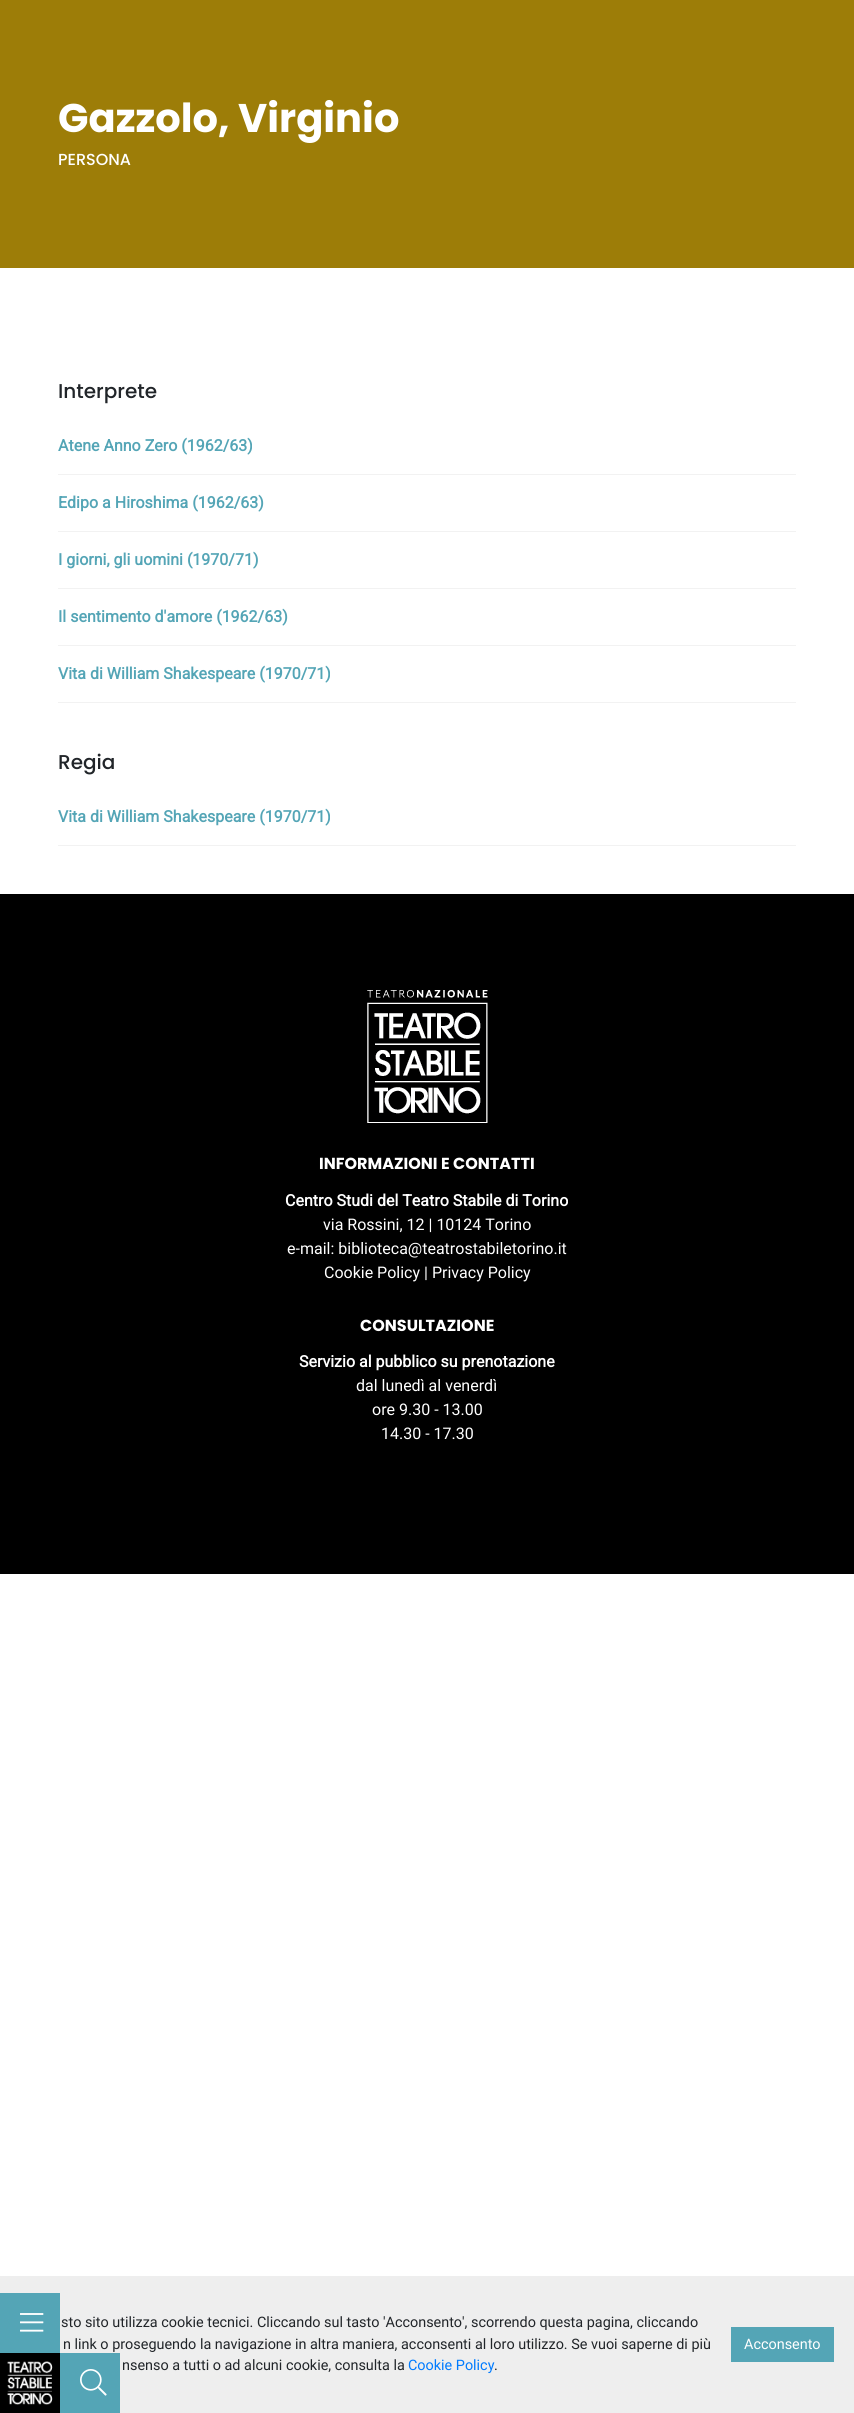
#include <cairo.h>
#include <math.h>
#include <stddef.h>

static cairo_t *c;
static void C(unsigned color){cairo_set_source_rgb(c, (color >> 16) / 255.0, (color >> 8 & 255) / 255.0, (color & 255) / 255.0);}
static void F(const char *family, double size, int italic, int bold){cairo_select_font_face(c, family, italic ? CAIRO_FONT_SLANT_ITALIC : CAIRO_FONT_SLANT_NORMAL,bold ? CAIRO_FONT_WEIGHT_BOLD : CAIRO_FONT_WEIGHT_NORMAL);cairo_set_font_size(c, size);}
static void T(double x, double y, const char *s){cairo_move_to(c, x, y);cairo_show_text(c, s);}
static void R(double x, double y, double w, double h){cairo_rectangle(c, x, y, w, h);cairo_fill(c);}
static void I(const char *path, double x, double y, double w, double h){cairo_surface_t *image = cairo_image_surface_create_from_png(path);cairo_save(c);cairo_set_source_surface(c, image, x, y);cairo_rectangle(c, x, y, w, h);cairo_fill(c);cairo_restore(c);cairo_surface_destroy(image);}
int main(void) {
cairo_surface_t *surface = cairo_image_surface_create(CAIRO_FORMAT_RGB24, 854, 2413);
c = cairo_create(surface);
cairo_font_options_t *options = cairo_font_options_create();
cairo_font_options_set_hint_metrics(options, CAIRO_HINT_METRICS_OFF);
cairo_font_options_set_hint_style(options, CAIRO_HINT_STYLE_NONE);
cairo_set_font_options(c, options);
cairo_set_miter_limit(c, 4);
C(0xffffff);
cairo_paint(c);
C(0x9d7d08);
R(0,0,854,268);
F("Poppins",40,0,1);
C(0xffffff);
T(58,132,"Gazzolo, Virginio");
F("Poppins Medium",16,0,0);
T(58,165,"PERSONA");
F("Poppins Medium",20,0,0);
C(0x212529);
T(58,398,"Interprete");
C(0xf2f2f2);
R(58,474,738,1);
F("Roboto",16,0,1);
C(0x54a5b6);
T(58,451,"Atene Anno Zero (1962/63)");
C(0xf2f2f2);
R(58,531,738,1);
C(0x54a5b6);
T(58,508,"Edipo a Hiroshima (1962/63)");
C(0xf2f2f2);
R(58,588,738,1);
C(0x54a5b6);
T(58,565,"I giorni, gli uomini (1970/71)");
C(0xf2f2f2);
R(58,645,738,1);
C(0x54a5b6);
T(58,622,"Il sentimento d'amore (1962/63)");
C(0xf2f2f2);
R(58,702,738,1);
C(0x54a5b6);
T(58,679,"Vita di William Shakespeare (1970/71)");
F("Poppins Medium",20,0,0);
C(0x212529);
T(58,769,"Regia");
C(0xf2f2f2);
R(58,845,738,1);
F("Roboto",16,0,1);
C(0x54a5b6);
T(58,822,"Vita di William Shakespeare (1970/71)");
C(0x000000);
R(0,894,854,680);
I("1.png",367,990,121,133);
F("Poppins",16,0,1);
C(0xffffff);
T(319,1169,"INFORMAZIONI E CONTATTI");
F("Roboto",16,0,1);
T(285,1206,"Centro Studi del Teatro Stabile di Torino");
F("Roboto",16,0,0);
T(323,1230,"via Rossini, 12 | 10124 Torino");
T(287,1254,"e-mail: biblioteca@teatrostabiletorino.it");
T(324,1278,"Cookie Policy | Privacy Policy");
F("Poppins",16,0,1);
T(360,1331,"CONSULTAZIONE");
F("Roboto",16,0,1);
T(299,1367,"Servizio al pubblico su prenotazione");
F("Roboto",16,0,0);
T(356,1391,"dal lunedì al venerdì");
T(372,1415,"ore 9.30 - 13.00");
T(381,1439,"14.30 - 17.30");
C(0xeeeeee);
R(0,2276,854,137);
C(0x000000);
R(0,2353,60,60);
C(0x54a5b6);
R(0,2293,60,60);
I("2.png",20,2313,24,19);
I("3.png",7,2361,46,44);
R(60,2353,60,60);
I("4.png",80,2369,27,27);
F("Roboto",14.4,0,0);
C(0x212529);
T(61,2327,"sto sito utilizza cookie tecnici. Cliccando sul tasto 'Acconsento', scorrendo questa pagina, cliccando");
T(63,2349,"n link o proseguendo la navigazione in altra maniera, acconsenti al loro utilizzo. Se vuoi saperne di più");
T(122,2370,"nsenso a tutti o ad alcuni cookie, consulta la");
C(0x007bff);
T(408,2370,"Cookie Policy");
C(0x212529);
T(494,2370,".");
C(0x54a5b6);
R(731,2327,103,35);
C(0xffffff);
T(744,2349,"Acconsento");
cairo_surface_write_to_png(surface, "o.png");
cairo_font_options_destroy(options);
cairo_destroy(c);
cairo_surface_destroy(surface);
return 0;
}
